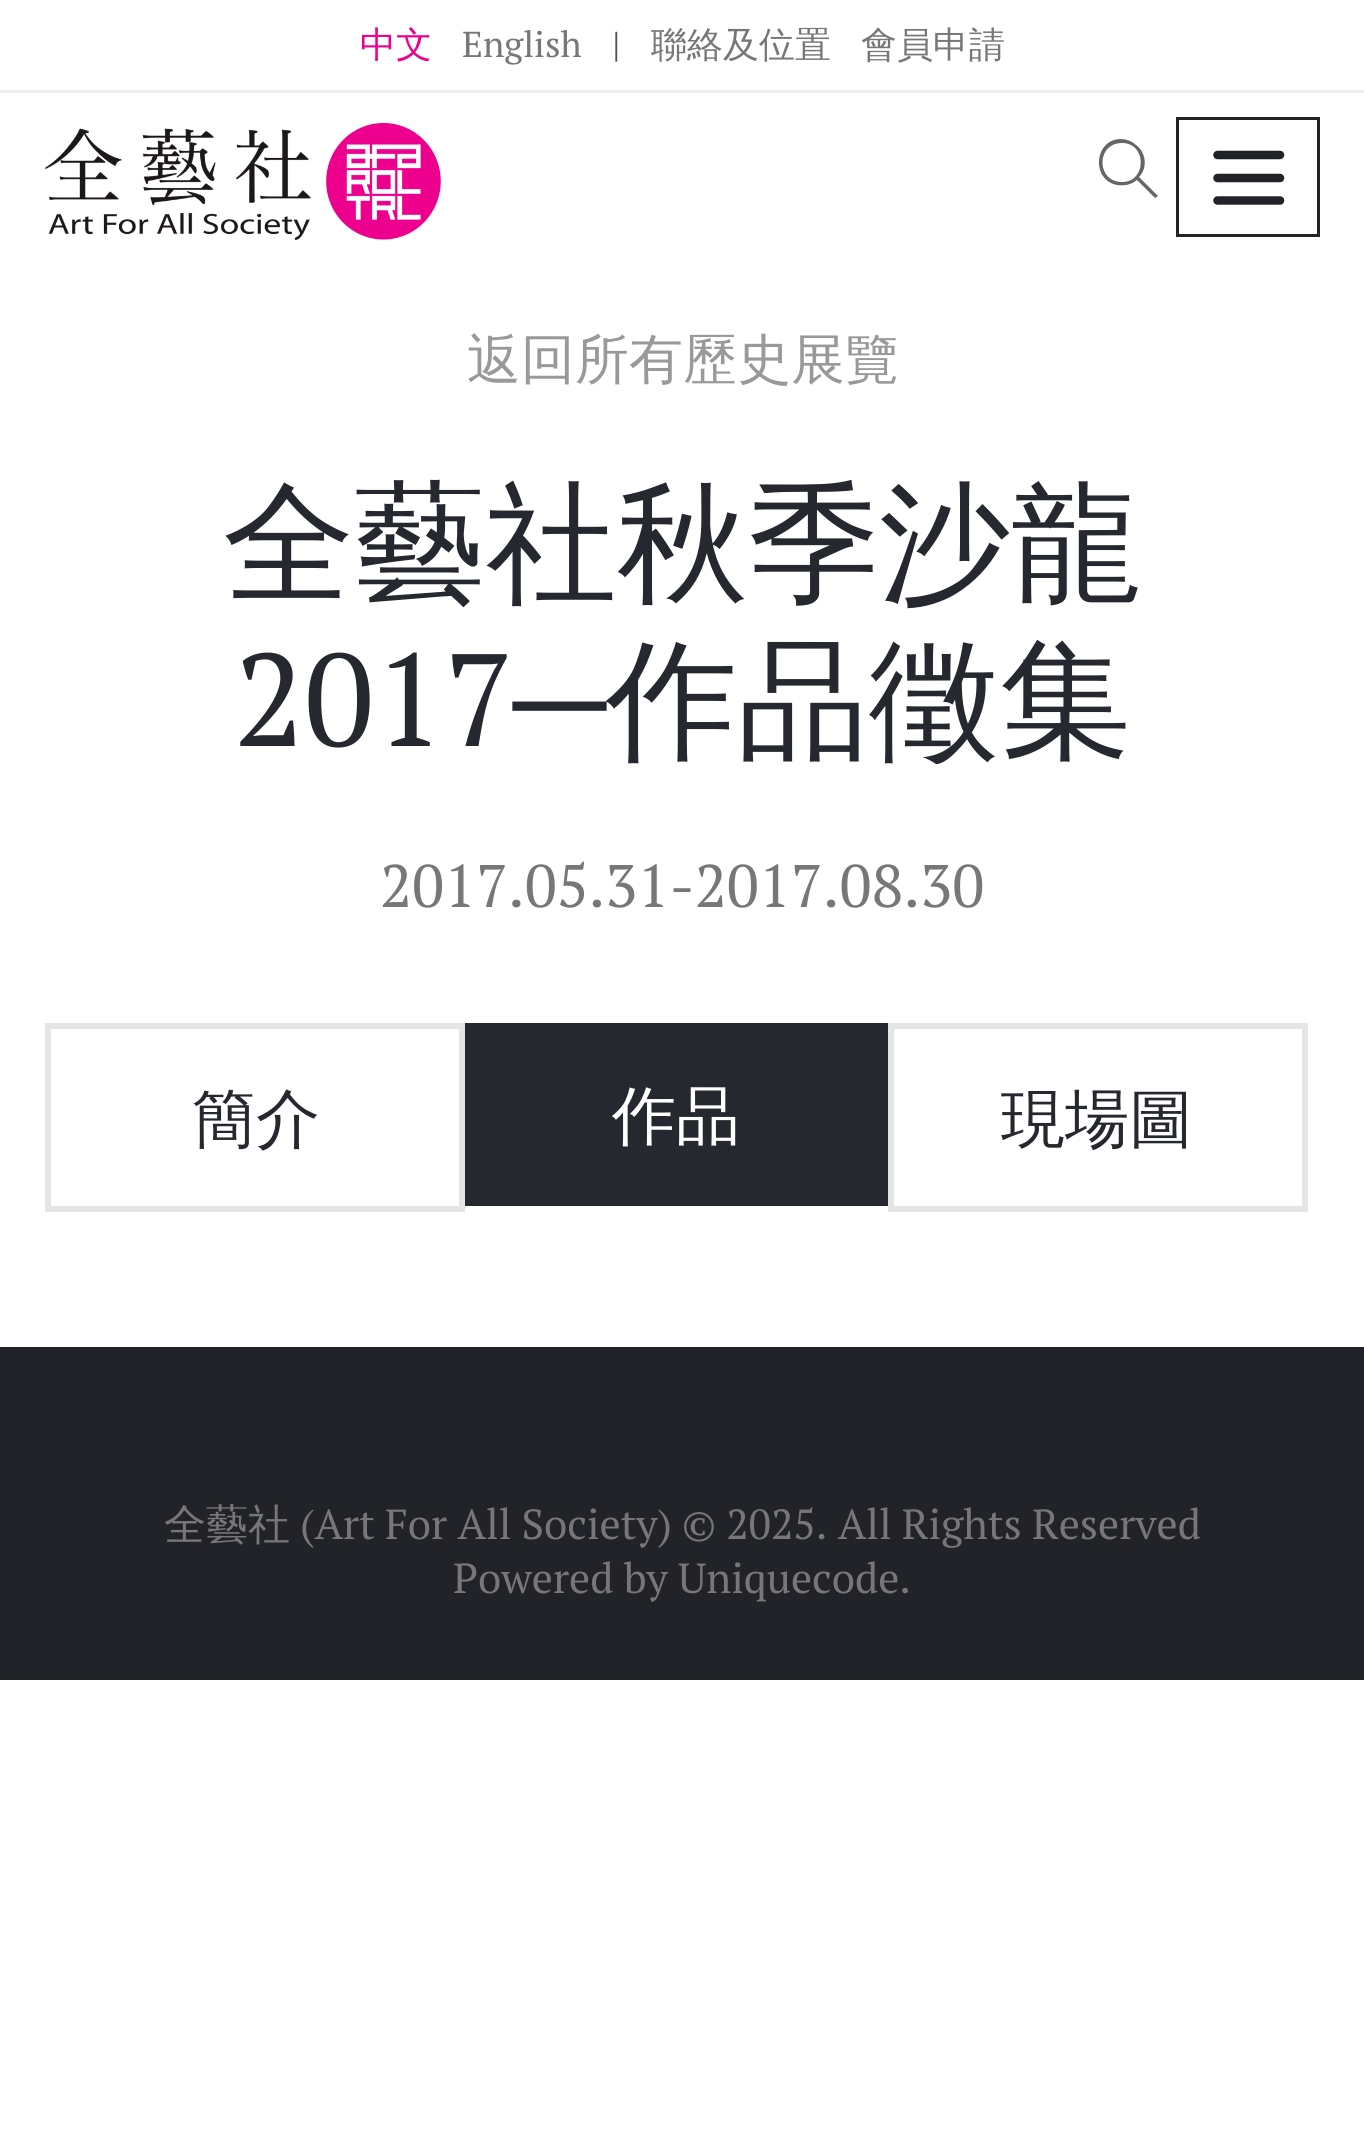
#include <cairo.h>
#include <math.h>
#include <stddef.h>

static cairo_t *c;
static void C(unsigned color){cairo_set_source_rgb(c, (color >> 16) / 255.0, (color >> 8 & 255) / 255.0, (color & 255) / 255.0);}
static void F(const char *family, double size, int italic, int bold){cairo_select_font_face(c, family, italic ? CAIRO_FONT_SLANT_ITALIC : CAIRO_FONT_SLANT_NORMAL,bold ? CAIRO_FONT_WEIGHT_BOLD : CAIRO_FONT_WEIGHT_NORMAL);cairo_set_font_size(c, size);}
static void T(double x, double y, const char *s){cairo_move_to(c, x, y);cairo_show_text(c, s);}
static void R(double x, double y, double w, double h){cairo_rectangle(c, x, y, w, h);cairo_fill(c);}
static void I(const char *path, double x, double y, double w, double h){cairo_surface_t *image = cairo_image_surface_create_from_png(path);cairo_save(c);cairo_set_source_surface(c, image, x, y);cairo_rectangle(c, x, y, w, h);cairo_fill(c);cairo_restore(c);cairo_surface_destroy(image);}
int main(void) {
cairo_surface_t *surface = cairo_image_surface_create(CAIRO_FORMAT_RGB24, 1364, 2145);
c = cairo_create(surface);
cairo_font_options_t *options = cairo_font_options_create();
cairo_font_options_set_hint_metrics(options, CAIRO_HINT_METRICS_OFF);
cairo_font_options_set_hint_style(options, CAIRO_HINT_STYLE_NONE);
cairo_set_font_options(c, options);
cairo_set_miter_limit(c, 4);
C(0xffffff);
cairo_paint(c);
C(0xeeeeee);
R(0,90,1364,3);
F("WenQuanYi Zen Hei Medium",36,0,0);
C(0xed008d);
T(360,57,"中文");
F("PT Serif",36,0,0);
C(0x777777);
T(462,57,"English");
C(0x555555);
T(612,57,"|");
F("WenQuanYi Zen Hei Medium",36,0,0);
C(0x777777);
T(651,57,"聯絡及位置");
T(861,57,"會員申請");
I("1.png",45,123,396,117);
C(0x666666);
cairo_new_path(c);
cairo_move_to(c,1158,196);
cairo_line_to(c,1139,177);
cairo_curve_to(c,1148,168,1146,152,1136,145);
cairo_curve_to(c,1132,141,1126,139,1120,139);
cairo_curve_to(c,1094,140,1091,180,1117,185);
cairo_curve_to(c,1124,186,1131,185,1137,180);
cairo_line_to(c,1155,198);
cairo_close_path(c);
cairo_move_to(c,1122,182);
cairo_curve_to(c,1096,182,1096,143,1122,143);
cairo_curve_to(c,1147,143,1147,182,1122,182);
cairo_close_path(c);
cairo_fill(c);
cairo_rectangle(c,1177.5,118.5,141,117);
C(0x212329);
cairo_set_line_width(c,3);
cairo_stroke(c);
cairo_new_path(c);
cairo_move_to(c,1217.5,155);
cairo_line_to(c,1280,155);
cairo_move_to(c,1217.5,178);
cairo_line_to(c,1280,178);
cairo_move_to(c,1217.5,200.5);
cairo_line_to(c,1280,200.5);
cairo_set_line_width(c,8.5);
cairo_set_line_cap(c,CAIRO_LINE_CAP_ROUND);
cairo_stroke(c);
F("WenQuanYi Zen Hei Medium",54,0,0);
C(0x999999);
T(467,378,"返回所有歷史展覽");
F("WenQuanYi Zen Hei Medium",131.25,0,0);
C(0x25282e);
T(223,589,"全藝社秋季沙龍");
F("PT Serif",131.25,0,0);
T(234,746,"2017");
F("Liberation Sans",131.25,0,0);
T(513,746,"─");
F("WenQuanYi Zen Hei Medium",131.25,0,0);
T(606,746,"作品徵集");
F("PT Serif",60,0,0);
C(0x777777);
T(380,907,"2017.05.31-2017.08.30");
cairo_rectangle(c,48,1026,414,183);
C(0xe5e5e5);
cairo_set_line_width(c,6);
cairo_set_line_cap(c,CAIRO_LINE_CAP_BUTT);
cairo_stroke(c);
F("WenQuanYi Zen Hei Medium",64,0,0);
C(0x25282e);
T(192,1141,"簡介");
R(465,1023,423,183);
C(0xffffff);
T(612,1138,"作品");
cairo_rectangle(c,891,1026,414,183);
C(0xe5e5e5);
cairo_stroke(c);
C(0x25282e);
T(1001,1141,"現場圖");
C(0x212329);
R(0,1347,1364,333);
F("WenQuanYi Zen Hei Medium",42,0,0);
C(0x777777);
T(164,1539,"全藝社");
F("PT Serif",42,0,0);
T(300,1539,"(Art For All Society) © 2025. All Rights Reserved");
T(453,1593,"Powered by Uniquecode.");
cairo_surface_write_to_png(surface, "o.png");
cairo_font_options_destroy(options);
cairo_destroy(c);
cairo_surface_destroy(surface);
return 0;
}
